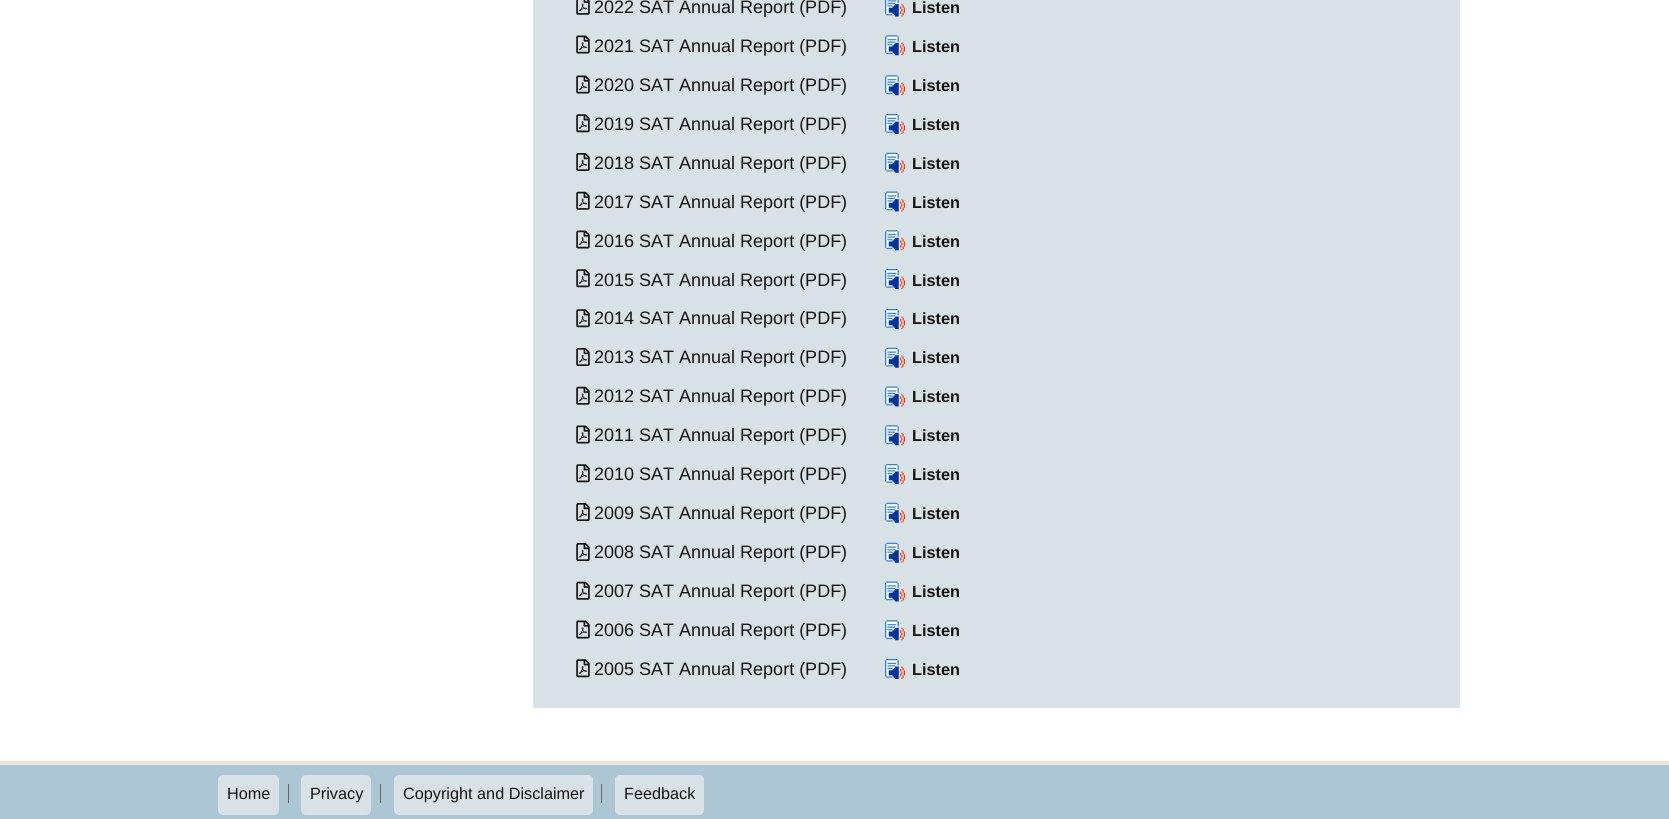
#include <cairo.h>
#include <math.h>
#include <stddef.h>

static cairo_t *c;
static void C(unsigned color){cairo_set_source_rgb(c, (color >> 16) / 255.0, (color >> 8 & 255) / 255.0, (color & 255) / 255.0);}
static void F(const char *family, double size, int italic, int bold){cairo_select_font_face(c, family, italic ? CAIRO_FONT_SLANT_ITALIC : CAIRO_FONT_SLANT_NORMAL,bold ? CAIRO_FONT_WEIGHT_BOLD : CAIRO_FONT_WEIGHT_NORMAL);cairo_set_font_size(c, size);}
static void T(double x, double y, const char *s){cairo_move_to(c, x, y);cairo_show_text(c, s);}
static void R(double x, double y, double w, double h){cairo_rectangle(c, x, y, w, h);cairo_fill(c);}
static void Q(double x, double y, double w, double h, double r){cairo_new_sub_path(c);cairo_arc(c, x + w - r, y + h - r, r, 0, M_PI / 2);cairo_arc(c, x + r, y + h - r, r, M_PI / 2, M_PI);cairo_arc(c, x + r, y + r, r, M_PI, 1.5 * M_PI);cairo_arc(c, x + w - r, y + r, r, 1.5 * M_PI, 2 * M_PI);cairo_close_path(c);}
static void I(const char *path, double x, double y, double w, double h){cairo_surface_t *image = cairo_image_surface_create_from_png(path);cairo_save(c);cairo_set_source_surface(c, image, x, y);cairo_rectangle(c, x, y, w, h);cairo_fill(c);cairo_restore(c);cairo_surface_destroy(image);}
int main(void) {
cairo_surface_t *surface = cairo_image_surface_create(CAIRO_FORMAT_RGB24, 1669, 819);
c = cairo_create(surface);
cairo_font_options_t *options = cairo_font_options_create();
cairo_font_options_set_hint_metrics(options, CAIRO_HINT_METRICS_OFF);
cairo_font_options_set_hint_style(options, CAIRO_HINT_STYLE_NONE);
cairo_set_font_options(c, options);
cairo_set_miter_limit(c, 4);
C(0xffffff);
cairo_paint(c);
C(0xd8e1e6);
R(533,0,927,708);
I("1.png",576,0,14,15);
F("Liberation Sans",18,0,0);
C(0x141414);
T(594,13,"2022 SAT Annual Report (PDF)");
I("2.png",885,0,21,17);
F("Liberation Sans",16.25,0,1);
T(912,13,"Listen");
I("3.png",576,35,14,19);
F("Liberation Sans",18,0,0);
T(594,52,"2021 SAT Annual Report (PDF)");
I("4.png",885,35,21,21);
F("Liberation Sans",16.25,0,1);
T(912,52,"Listen");
I("3.png",576,75,14,19);
F("Liberation Sans",18,0,0);
T(594,91,"2020 SAT Annual Report (PDF)");
I("4.png",885,75,21,21);
F("Liberation Sans",16.25,0,1);
T(912,91,"Listen");
I("5.png",576,114,14,19);
F("Liberation Sans",18,0,0);
T(594,130,"2019 SAT Annual Report (PDF)");
I("6.png",885,114,21,20);
F("Liberation Sans",16.25,0,1);
T(912,130,"Listen");
I("7.png",576,153,14,18);
F("Liberation Sans",18,0,0);
T(594,169,"2018 SAT Annual Report (PDF)");
I("8.png",885,152,21,21);
F("Liberation Sans",16.25,0,1);
T(912,169,"Listen");
I("9.png",576,191,14,19);
F("Liberation Sans",18,0,0);
T(594,208,"2017 SAT Annual Report (PDF)");
I("10.png",885,191,21,21);
F("Liberation Sans",16.25,0,1);
T(912,208,"Listen");
I("3.png",576,230,14,19);
F("Liberation Sans",18,0,0);
T(594,247,"2016 SAT Annual Report (PDF)");
I("4.png",885,230,21,21);
F("Liberation Sans",16.25,0,1);
T(912,247,"Listen");
I("5.png",576,269,14,19);
F("Liberation Sans",18,0,0);
T(594,286,"2015 SAT Annual Report (PDF)");
I("11.png",885,269,21,20);
F("Liberation Sans",16.25,0,1);
T(912,286,"Listen");
I("5.png",576,309,14,19);
F("Liberation Sans",18,0,0);
T(594,324,"2014 SAT Annual Report (PDF)");
I("11.png",885,309,21,20);
F("Liberation Sans",16.25,0,1);
T(912,324,"Listen");
I("7.png",576,348,14,18);
F("Liberation Sans",18,0,0);
T(594,363,"2013 SAT Annual Report (PDF)");
I("8.png",885,347,21,21);
F("Liberation Sans",16.25,0,1);
T(912,363,"Listen");
I("9.png",576,386,14,19);
F("Liberation Sans",18,0,0);
T(594,402,"2012 SAT Annual Report (PDF)");
I("10.png",885,386,21,21);
F("Liberation Sans",16.25,0,1);
T(912,402,"Listen");
I("3.png",576,425,14,19);
F("Liberation Sans",18,0,0);
T(594,441,"2011 SAT Annual Report (PDF)");
I("4.png",885,425,21,21);
F("Liberation Sans",16.25,0,1);
T(912,441,"Listen");
I("5.png",576,464,14,19);
F("Liberation Sans",18,0,0);
T(594,480,"2010 SAT Annual Report (PDF)");
I("11.png",885,464,21,20);
F("Liberation Sans",16.25,0,1);
T(912,480,"Listen");
I("7.png",576,503,14,18);
F("Liberation Sans",18,0,0);
T(594,519,"2009 SAT Annual Report (PDF)");
I("12.png",885,502,21,21);
F("Liberation Sans",16.25,0,1);
T(912,519,"Listen");
I("7.png",576,543,14,18);
F("Liberation Sans",18,0,0);
T(594,558,"2008 SAT Annual Report (PDF)");
I("8.png",885,542,21,21);
F("Liberation Sans",16.25,0,1);
T(912,558,"Listen");
I("9.png",576,581,14,19);
F("Liberation Sans",18,0,0);
T(594,597,"2007 SAT Annual Report (PDF)");
I("10.png",885,581,21,21);
F("Liberation Sans",16.25,0,1);
T(912,597,"Listen");
I("3.png",576,620,14,19);
F("Liberation Sans",18,0,0);
T(594,636,"2006 SAT Annual Report (PDF)");
I("4.png",885,620,21,21);
F("Liberation Sans",16.25,0,1);
T(912,636,"Listen");
I("5.png",576,659,14,19);
F("Liberation Sans",18,0,0);
T(594,675,"2005 SAT Annual Report (PDF)");
I("11.png",885,659,21,20);
F("Liberation Sans",16.25,0,1);
T(912,675,"Listen");
C(0xadc6d4);
R(0,765,1669,54);
C(0xe6e6dc);
R(0,761,1669,4);
C(0x666666);
R(288,784,1,19);
C(0xd8e1e6);
Q(218,775,61,40,5);
cairo_fill(c);
F("Liberation Sans",16.25,0,0);
C(0x141414);
T(227,799,"Home");
C(0x666666);
R(380,784,1,19);
C(0xd8e1e6);
Q(301,775,70,40,5);
cairo_fill(c);
C(0x141414);
T(310,799,"Privacy");
C(0x666666);
R(601,784,1,19);
C(0xd8e1e6);
Q(394,775,199,40,5);
cairo_fill(c);
C(0x141414);
T(403,799,"Copyright and Disclaimer");
C(0xd8e1e6);
Q(615,775,89,40,5);
cairo_fill(c);
C(0x141414);
T(624,799,"Feedback");
cairo_surface_write_to_png(surface, "o.png");
cairo_font_options_destroy(options);
cairo_destroy(c);
cairo_surface_destroy(surface);
return 0;
}
